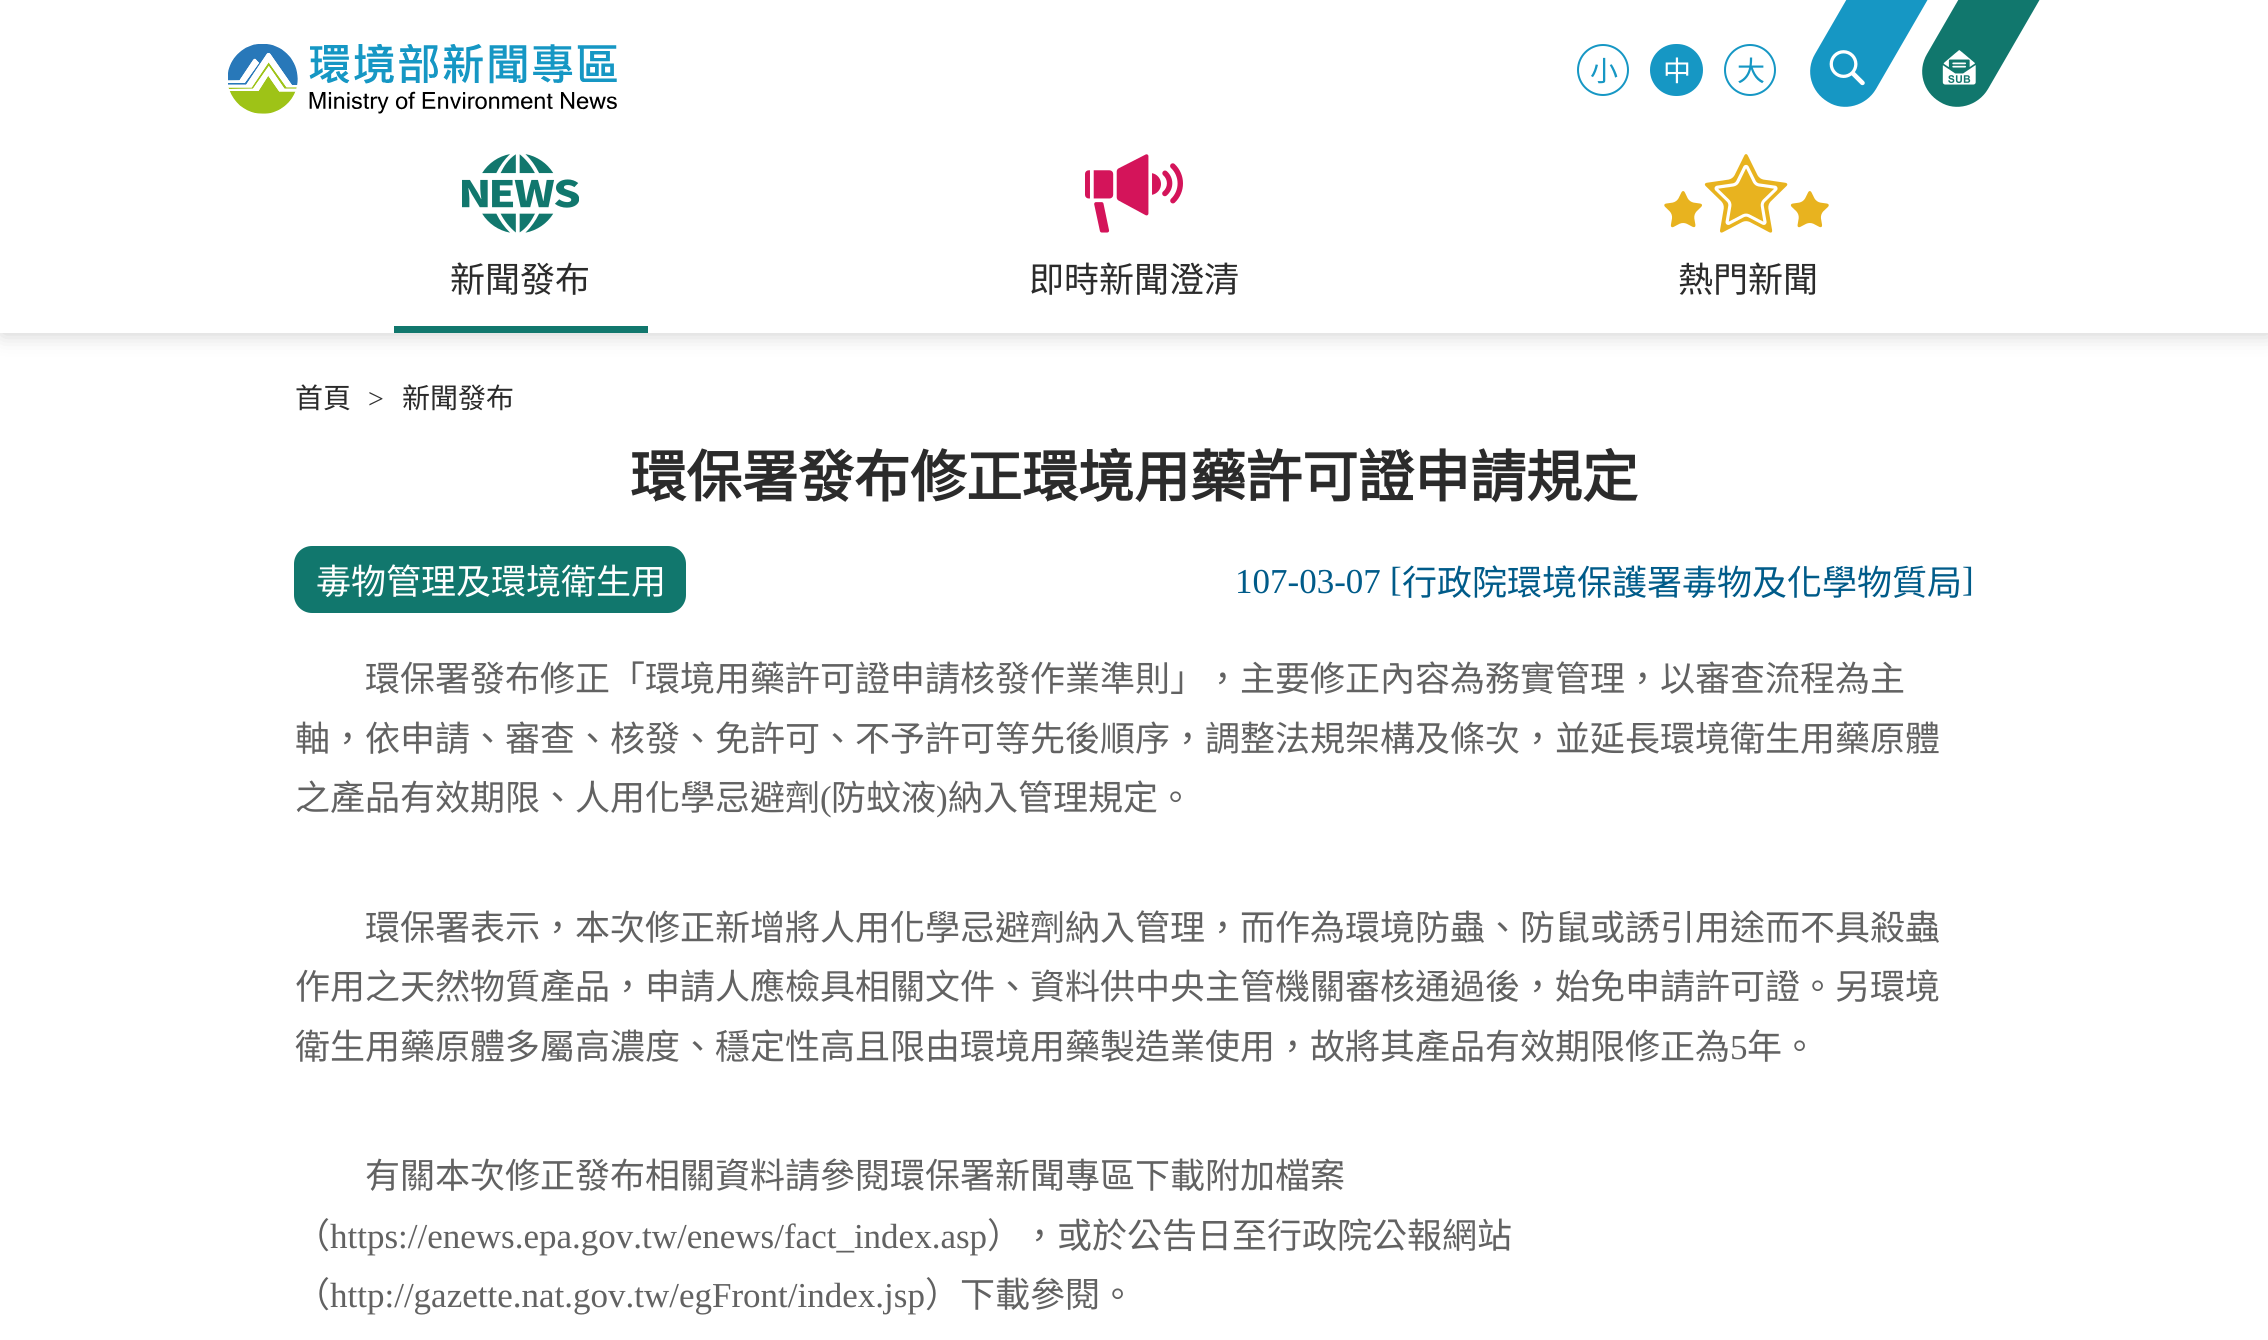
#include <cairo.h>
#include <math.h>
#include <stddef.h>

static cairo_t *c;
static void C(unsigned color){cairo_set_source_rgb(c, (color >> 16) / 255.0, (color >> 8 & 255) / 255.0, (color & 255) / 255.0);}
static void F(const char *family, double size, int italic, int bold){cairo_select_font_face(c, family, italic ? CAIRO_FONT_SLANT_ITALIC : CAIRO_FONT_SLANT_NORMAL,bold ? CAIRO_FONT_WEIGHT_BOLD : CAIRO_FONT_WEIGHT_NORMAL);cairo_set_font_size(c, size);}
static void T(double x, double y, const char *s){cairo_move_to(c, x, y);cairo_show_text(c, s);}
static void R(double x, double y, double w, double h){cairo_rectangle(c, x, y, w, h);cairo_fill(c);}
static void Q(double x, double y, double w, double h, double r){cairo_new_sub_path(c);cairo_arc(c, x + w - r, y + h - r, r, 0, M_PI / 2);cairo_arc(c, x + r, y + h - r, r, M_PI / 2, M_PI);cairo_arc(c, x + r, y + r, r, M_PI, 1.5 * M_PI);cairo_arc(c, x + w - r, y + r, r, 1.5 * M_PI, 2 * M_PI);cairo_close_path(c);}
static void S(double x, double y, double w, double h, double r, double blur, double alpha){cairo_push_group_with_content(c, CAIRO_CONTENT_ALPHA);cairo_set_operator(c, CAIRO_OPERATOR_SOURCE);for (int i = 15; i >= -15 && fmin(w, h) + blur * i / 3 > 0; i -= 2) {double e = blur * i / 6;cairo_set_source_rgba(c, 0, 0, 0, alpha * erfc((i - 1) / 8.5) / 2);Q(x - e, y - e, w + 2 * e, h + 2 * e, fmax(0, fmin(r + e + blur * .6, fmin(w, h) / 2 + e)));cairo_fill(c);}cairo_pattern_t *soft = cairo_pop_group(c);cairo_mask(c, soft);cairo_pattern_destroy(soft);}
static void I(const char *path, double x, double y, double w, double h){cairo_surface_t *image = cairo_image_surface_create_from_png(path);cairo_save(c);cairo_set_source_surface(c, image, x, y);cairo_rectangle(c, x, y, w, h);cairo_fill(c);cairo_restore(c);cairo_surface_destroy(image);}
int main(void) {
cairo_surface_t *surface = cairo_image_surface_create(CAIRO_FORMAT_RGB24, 2268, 1340);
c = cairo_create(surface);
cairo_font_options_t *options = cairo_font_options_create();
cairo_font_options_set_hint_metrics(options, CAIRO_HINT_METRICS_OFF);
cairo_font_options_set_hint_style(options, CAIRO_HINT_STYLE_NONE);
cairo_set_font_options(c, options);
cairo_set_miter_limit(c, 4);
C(0xffffff);
cairo_paint(c);
C(0x000000);
S(2,2,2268,332,0,10.5,.2);
C(0xffffff);
R(0,0,2268,333);
I("1.png",228,44,389,70);
cairo_arc(c,1603,70,25,0,2 * M_PI);
C(0x1697c4);
cairo_stroke(c);
F("Noto Sans CJK TC",28,0,0);
T(1590,81,"小");
Q(1651,45,51,50,25);
cairo_fill_preserve(c);
cairo_stroke(c);
C(0xffffff);
T(1663,81,"中");
cairo_new_path(c);
cairo_arc(c,1750,70,25,0,2 * M_PI);
C(0x1697c4);
cairo_stroke(c);
T(1737,81,"大");
cairo_new_path(c);
cairo_move_to(c,1885,-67);
cairo_line_to(c,1946,-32);
cairo_line_to(c,1876,89);
cairo_curve_to(c,1866,106,1844,112,1828,102);
cairo_curve_to(c,1811,92,1805,71,1815,54);
cairo_close_path(c);
cairo_fill(c);
I("2.png",1829,50,36,36);
C(0x11776d);
cairo_new_path(c);
cairo_move_to(c,1997,-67);
cairo_line_to(c,2058,-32);
cairo_line_to(c,1988,89);
cairo_curve_to(c,1978,106,1956,112,1940,102);
cairo_curve_to(c,1923,92,1917,71,1927,54);
cairo_close_path(c);
cairo_fill(c);
I("3.png",1942,50,34,35);
I("4.png",462,154,117,79);
F("Noto Sans CJK TC",35,0,0);
C(0x2b2b2b);
T(450,292,"新聞發布");
C(0x11776d);
R(394,326,254,7);
I("5.png",1085,154,98,79);
C(0x2b2b2b);
T(1029,292,"即時新聞澄清");
I("6.png",1664,154,165,79);
T(1678,292,"熱門新聞");
F("Noto Sans CJK TC",28,0,0);
T(295,408,"首頁");
F("Liberation Serif",28,0,0);
C(0x313131);
T(368,408,">");
F("Noto Sans CJK TC",28,0,0);
C(0x2b2b2b);
T(402,408,"新聞發布");
F("Noto Sans CJK TC",56,0,1);
T(630,497,"環保署發布修正環境用藥許可證申請規定");
C(0x11776d);
Q(294,546,392,67,18);
cairo_fill(c);
F("Noto Sans CJK TC",35,0,0);
C(0xffffff);
T(316,594,"毒物管理及環境衛生用");
F("Liberation Serif",35,0,0);
C(0x005b89);
T(1235,593,"107-03-07");
T(1390,591,"[");
F("Noto Sans CJK TC",35,0,0);
T(1402,595,"行政院環境保護署毒物及化學物質局");
F("Liberation Serif",35,0,0);
T(1962,591,"]");
F("Noto Sans CJK TC",35,0,0);
C(0x626262);
T(365,691,"環保署發布修正「環境用藥許可證申請核發作業準則」，主要修正內容為務實管理，以審查流程為主");
T(295,751,"軸，依申請、審查、核發、免許可、不予許可等先後順序，調整法規架構及條次，並延長環境衛生用藥原體");
T(295,810,"之產品有效期限、人用化學忌避劑");
F("Liberation Serif",35,0,0);
T(820,810,"(");
F("Noto Sans CJK TC",35,0,0);
T(831,810,"防蚊液");
F("Liberation Serif",35,0,0);
T(936,810,")");
F("Noto Sans CJK TC",35,0,0);
T(948,810,"納入管理規定。");
T(365,940,"環保署表示，本次修正新增將人用化學忌避劑納入管理，而作為環境防蟲、防鼠或誘引用途而不具殺蟲");
T(295,999,"作用之天然物質產品，申請人應檢具相關文件、資料供中央主管機關審核通過後，始免申請許可證。另環境");
T(295,1059,"衛生用藥原體多屬高濃度、穩定性高且限由環境用藥製造業使用，故將其產品有效期限修正為");
F("Liberation Serif",35,0,0);
T(1730,1059,"5");
F("Noto Sans CJK TC",35,0,0);
T(1747,1059,"年。");
T(365,1188,"有關本次修正發布相關資料請參閱環保署新聞專區下載附加檔案");
T(295,1248,"（");
F("Liberation Serif",35,0,0);
T(330,1248,"https://enews.epa.gov.tw/enews/fact_index.asp");
F("Noto Sans CJK TC",35,0,0);
T(987,1248,"），或於公告日至行政院公報網站");
T(295,1307,"（");
F("Liberation Serif",35,0,0);
T(330,1307,"http://gazette.nat.gov.tw/egFront/index.jsp");
F("Noto Sans CJK TC",35,0,0);
T(925,1307,"）下載參閱。");
cairo_surface_write_to_png(surface, "o.png");
cairo_font_options_destroy(options);
cairo_destroy(c);
cairo_surface_destroy(surface);
return 0;
}
